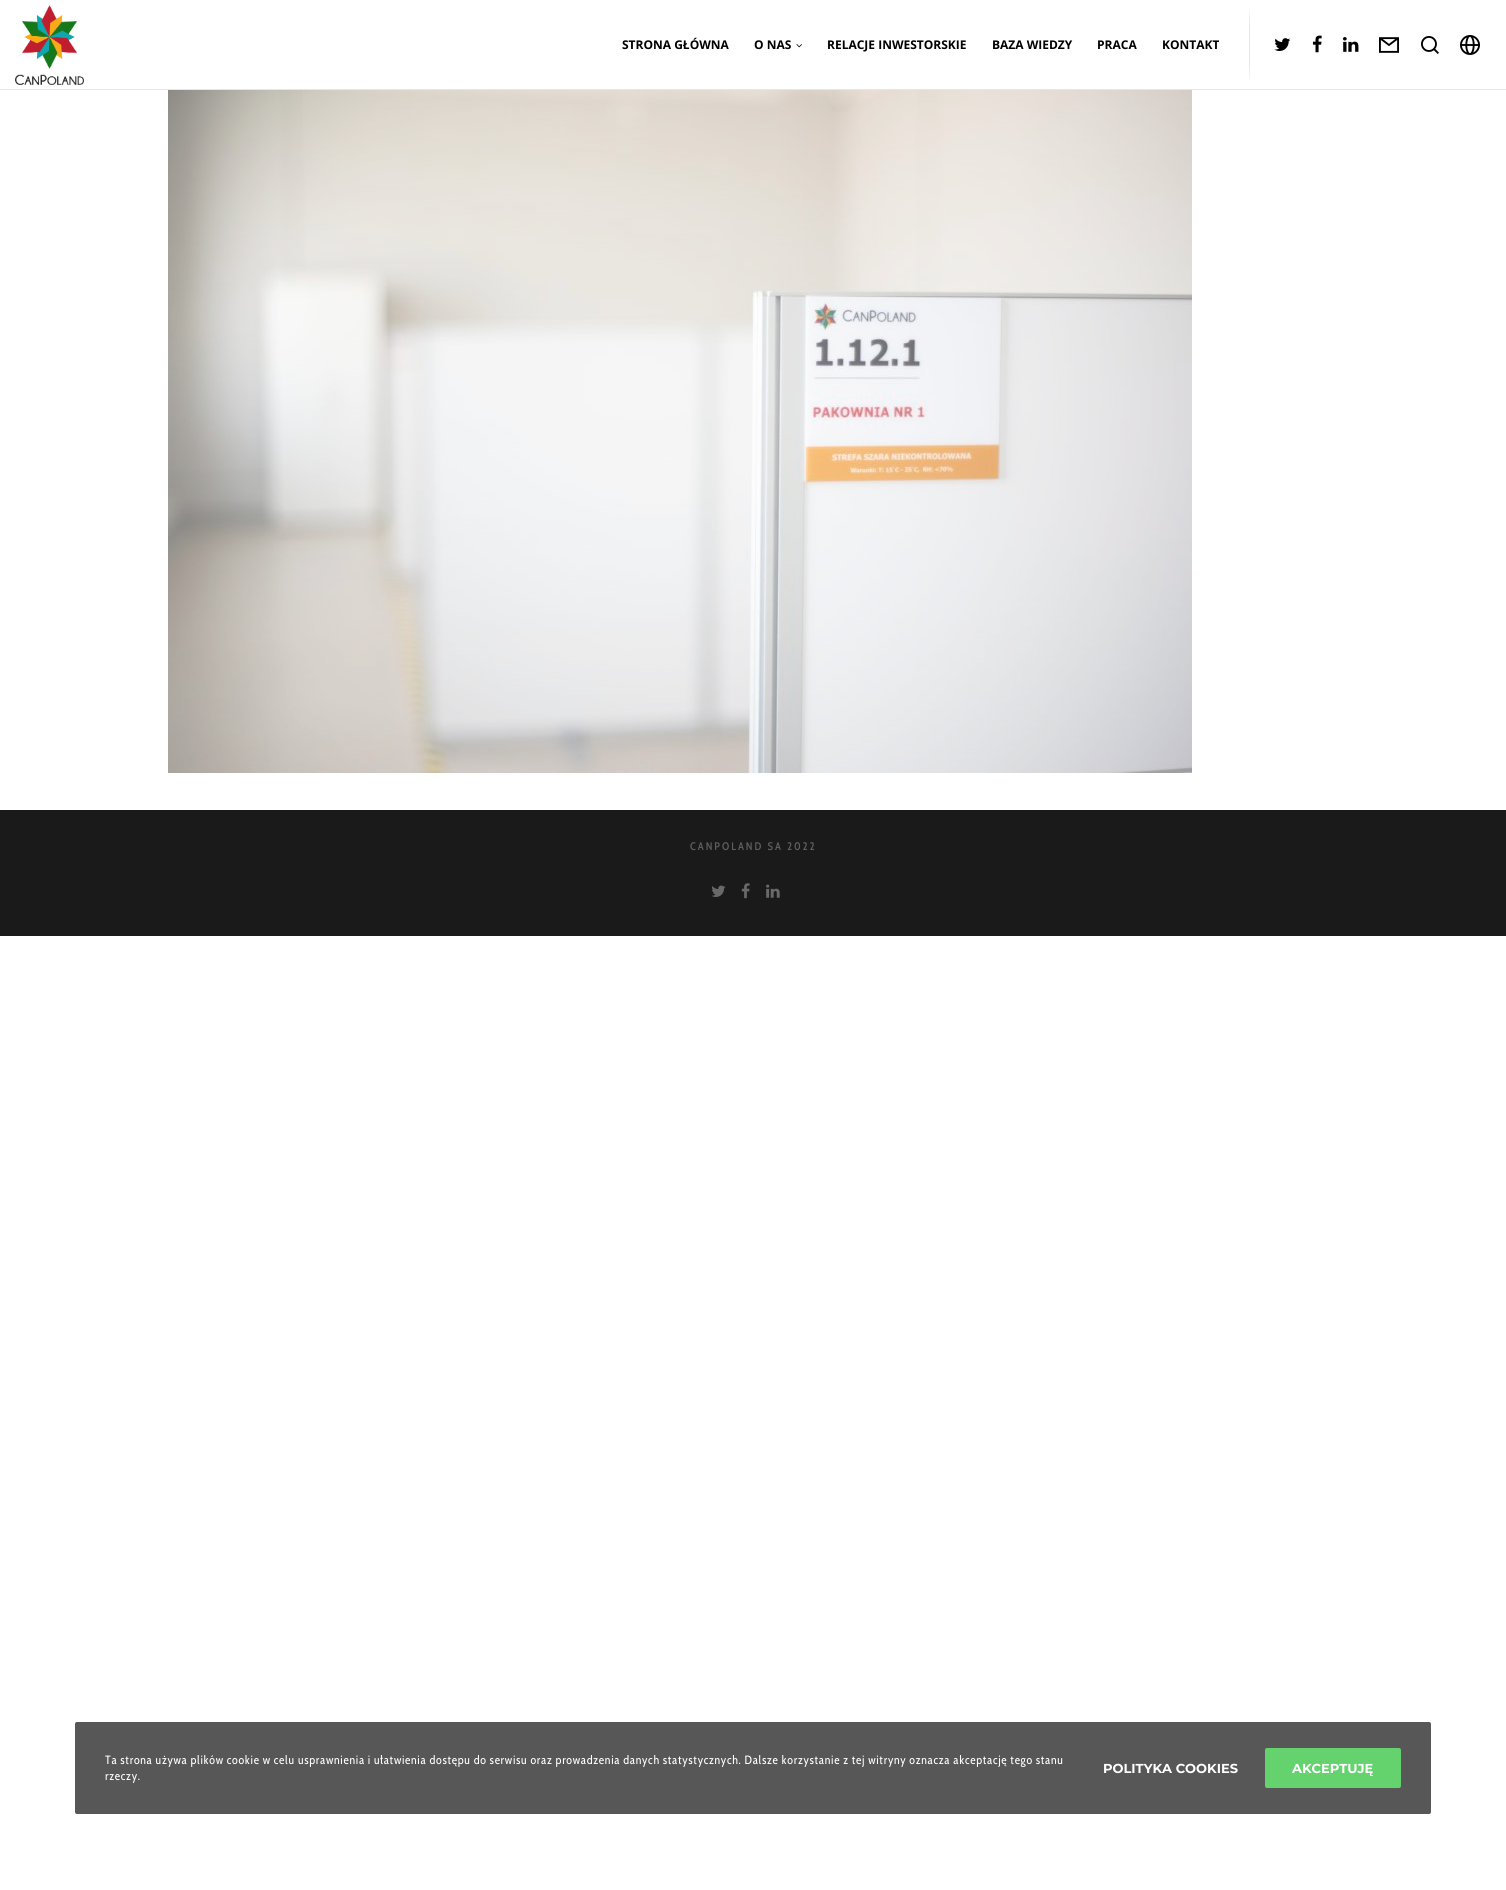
#include <cairo.h>
#include <math.h>
#include <stddef.h>

static cairo_t *c;
static void C(unsigned color){cairo_set_source_rgb(c, (color >> 16) / 255.0, (color >> 8 & 255) / 255.0, (color & 255) / 255.0);}
static void F(const char *family, double size, int italic, int bold){cairo_select_font_face(c, family, italic ? CAIRO_FONT_SLANT_ITALIC : CAIRO_FONT_SLANT_NORMAL,bold ? CAIRO_FONT_WEIGHT_BOLD : CAIRO_FONT_WEIGHT_NORMAL);cairo_set_font_size(c, size);}
static void T(double x, double y, const char *s){cairo_move_to(c, x, y);cairo_show_text(c, s);}
static void L(double x, double y, const char *s, double letter, double word){cairo_move_to(c, x, y);while (*s) {char ch[5] = {0};int n = 0;do ch[n++] = *s++; while ((*s & 0xC0) == 0x80);cairo_show_text(c, ch);cairo_rel_move_to(c, letter + word * (*ch == ' '), 0);}}
static void R(double x, double y, double w, double h){cairo_rectangle(c, x, y, w, h);cairo_fill(c);}
static void Q(double x, double y, double w, double h, double r){cairo_new_sub_path(c);cairo_arc(c, x + w - r, y + h - r, r, 0, M_PI / 2);cairo_arc(c, x + r, y + h - r, r, M_PI / 2, M_PI);cairo_arc(c, x + r, y + r, r, M_PI, 1.5 * M_PI);cairo_arc(c, x + w - r, y + r, r, 1.5 * M_PI, 2 * M_PI);cairo_close_path(c);}
static void I(const char *path, double x, double y, double w, double h){cairo_surface_t *image = cairo_image_surface_create_from_png(path);cairo_save(c);cairo_set_source_surface(c, image, x, y);cairo_rectangle(c, x, y, w, h);cairo_fill(c);cairo_restore(c);cairo_surface_destroy(image);}
int main(void) {
cairo_surface_t *surface = cairo_image_surface_create(CAIRO_FORMAT_RGB24, 1506, 1890);
c = cairo_create(surface);
cairo_font_options_t *options = cairo_font_options_create();
cairo_font_options_set_hint_metrics(options, CAIRO_HINT_METRICS_OFF);
cairo_font_options_set_hint_style(options, CAIRO_HINT_STYLE_NONE);
cairo_set_font_options(c, options);
cairo_set_miter_limit(c, 4);
cairo_pattern_t *gradient;
C(0xffffff);
cairo_paint(c);
C(0xe6e6e6);
R(0,89,1506,1);
I("1.png",15,5,69,80);
F("Open Sans",12,0,1);
C(0x000000);
T(622,49,"STRONA GŁÓWNA");
T(754,49,"O NAS");
I("2.png",796,44,6,4);
T(827,49,"RELACJE INWESTORSKIE");
T(992,49,"BAZA WIEDZY");
T(1097,49,"PRACA");
T(1162,49,"KONTAKT");
gradient = cairo_pattern_create_linear(1250,0,1250,90);
cairo_pattern_add_color_stop_rgba(gradient,.05,0,0,0,0);
cairo_pattern_add_color_stop_rgba(gradient,.3,0,0,0,.1);
cairo_pattern_add_color_stop_rgba(gradient,.7,0,0,0,.1);
cairo_pattern_add_color_stop_rgba(gradient,.95,0,0,0,0);
cairo_set_source(c,gradient);
cairo_pattern_destroy(gradient);
R(1249,9,1,72);
I("3.png",1274,38,17,13);
I("4.png",1312,35,10,18);
I("5.png",1343,37,16,15);
I("6.png",1379,37,20,16);
I("7.png",1421,36,18,18);
I("8.png",1460,35,20,20);
I("9.png",168,90,1024,683);
C(0x1a1a1a);
R(0,810,1506,126);
F("Cabin Condensed Medium",11,0,0);
C(0x5f5f5f);
L(690,850,"CANPOLAND SA 2022",2,0);
I("10.png",711,885,15,12);
I("11.png",741,883,9,16);
I("12.png",766,884,14,14);
C(0x575757);
Q(75,1722,1356,92,2);
cairo_fill(c);
F("Cabin Condensed",12,0,0);
C(0xffffff);
L(105,1764,"Ta strona używa plików cookie w celu usprawnienia i ułatwienia dostępu do serwisu oraz prowadzenia danych statystycznych. Dalsze korzystanie z tej witryny oznacza akceptację tego stanu",.7,0);
L(105,1780,"rzeczy.",.7,0);
F("Montserrat Thin",13,0,0);
T(1103,1773,"POLITYKA COOKIES");
C(0x64d26d);
Q(1265,1748,136,40,2);
cairo_fill(c);
C(0xffffff);
T(1292,1773,"AKCEPTUJĘ");
cairo_surface_write_to_png(surface, "o.png");
cairo_font_options_destroy(options);
cairo_destroy(c);
cairo_surface_destroy(surface);
return 0;
}
